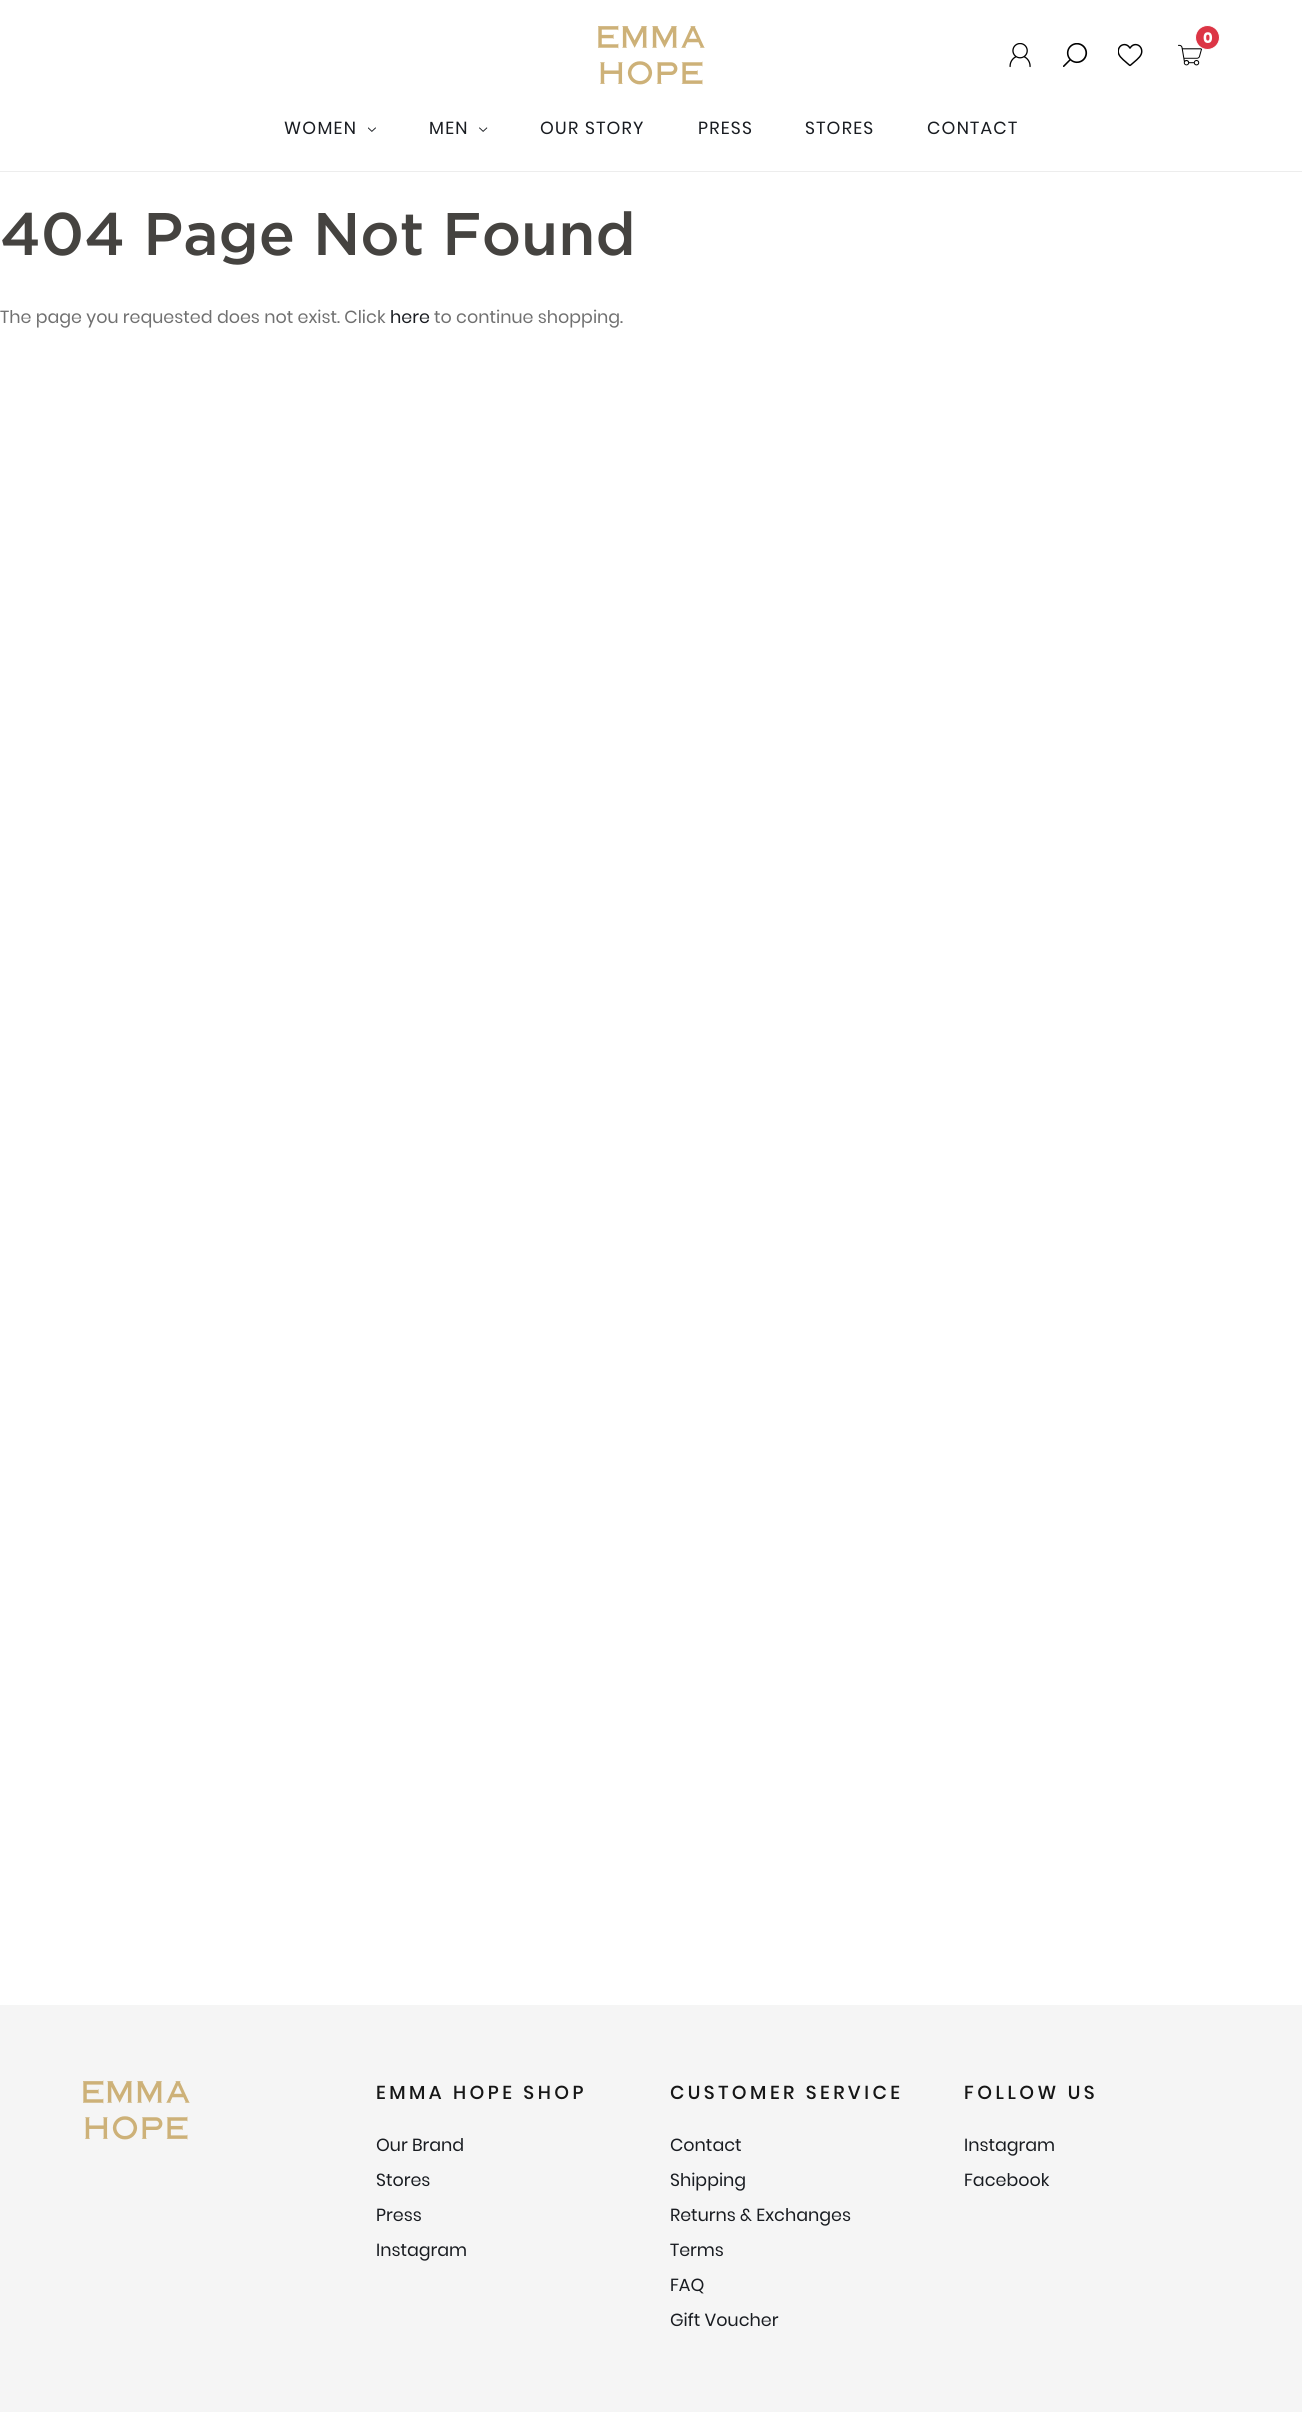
#include <cairo.h>
#include <math.h>
#include <stddef.h>

static cairo_t *c;
static void C(unsigned color){cairo_set_source_rgb(c, (color >> 16) / 255.0, (color >> 8 & 255) / 255.0, (color & 255) / 255.0);}
static void F(const char *family, double size, int italic, int bold){cairo_select_font_face(c, family, italic ? CAIRO_FONT_SLANT_ITALIC : CAIRO_FONT_SLANT_NORMAL,bold ? CAIRO_FONT_WEIGHT_BOLD : CAIRO_FONT_WEIGHT_NORMAL);cairo_set_font_size(c, size);}
static void T(double x, double y, const char *s){cairo_move_to(c, x, y);cairo_show_text(c, s);}
static void L(double x, double y, const char *s, double letter, double word){cairo_move_to(c, x, y);while (*s) {char ch[5] = {0};int n = 0;do ch[n++] = *s++; while ((*s & 0xC0) == 0x80);cairo_show_text(c, ch);cairo_rel_move_to(c, letter + word * (*ch == ' '), 0);}}
static void R(double x, double y, double w, double h){cairo_rectangle(c, x, y, w, h);cairo_fill(c);}
static void I(const char *path, double x, double y, double w, double h){cairo_surface_t *image = cairo_image_surface_create_from_png(path);cairo_save(c);cairo_set_source_surface(c, image, x, y);cairo_rectangle(c, x, y, w, h);cairo_fill(c);cairo_restore(c);cairo_surface_destroy(image);}
int main(void) {
cairo_surface_t *surface = cairo_image_surface_create(CAIRO_FORMAT_RGB24, 1302, 2412);
c = cairo_create(surface);
cairo_font_options_t *options = cairo_font_options_create();
cairo_font_options_set_hint_metrics(options, CAIRO_HINT_METRICS_OFF);
cairo_font_options_set_hint_style(options, CAIRO_HINT_STYLE_NONE);
cairo_set_font_options(c, options);
cairo_set_miter_limit(c, 4);
C(0xffffff);
cairo_paint(c);
C(0xededed);
R(0,171,1302,1);
I("1.png",598,25,107,60);
I("2.png",1178,44,25,22);
C(0xdc3545);
cairo_arc(c,1207.5,37.5,12,0,2 * M_PI);
cairo_fill_preserve(c);
C(0xffffff);
cairo_set_line_width(c,1);
cairo_stroke(c);
F("Poppins",15,0,1);
T(1203,43,"0");
I("3.png",1009,43,22,25);
I("4.png",1063,43,25,24);
I("5.png",1118,43,25,24);
F("Poppins",17.5,0,0);
C(0x191c21);
L(284,134,"WOMEN",1.25,0);
I("6.png",368,127,8,5);
L(429,134,"MEN",1.25,0);
I("7.png",479,127,9,5);
L(540,134,"OUR STORY",1.25,0);
L(698,134,"PRESS",1.25,0);
L(805,134,"STORES",1.25,0);
L(927,134,"CONTACT",1.25,0);
F("Gotham Medium",60,0,0);
C(0x454340);
T(0,255,"404 Page Not Found");
F("Poppins",17.5,0,0);
C(0x707070);
T(0,323,"The page you requested does not exist. Click");
C(0x191c21);
T(390,323,"here");
C(0x707070);
T(434,323,"to continue shopping.");
C(0xf5f5f5);
R(0,2005,1302,407);
I("8.png",83,2080,107,60);
F("Poppins Medium",18.75,0,0);
C(0x161616);
L(376,2099,"EMMA HOPE SHOP",3.5,0);
F("Poppins",17.5,0,0);
C(0x191c21);
T(376,2151,"Our Brand");
T(376,2186,"Stores");
T(376,2221,"Press");
T(376,2256,"Instagram");
F("Poppins Medium",18.75,0,0);
C(0x161616);
L(670,2099,"CUSTOMER SERVICE",3.5,0);
F("Poppins",17.5,0,0);
C(0x191c21);
T(670,2151,"Contact");
T(670,2186,"Shipping");
T(670,2221,"Returns & Exchanges");
T(670,2256,"Terms");
T(670,2291,"FAQ");
T(670,2326,"Gift Voucher");
F("Poppins Medium",18.75,0,0);
C(0x161616);
L(964,2099,"FOLLOW US",3.5,0);
F("Poppins",17.5,0,0);
C(0x191c21);
T(964,2151,"Instagram");
T(964,2186,"Facebook");
cairo_surface_write_to_png(surface, "o.png");
cairo_font_options_destroy(options);
cairo_destroy(c);
cairo_surface_destroy(surface);
return 0;
}
